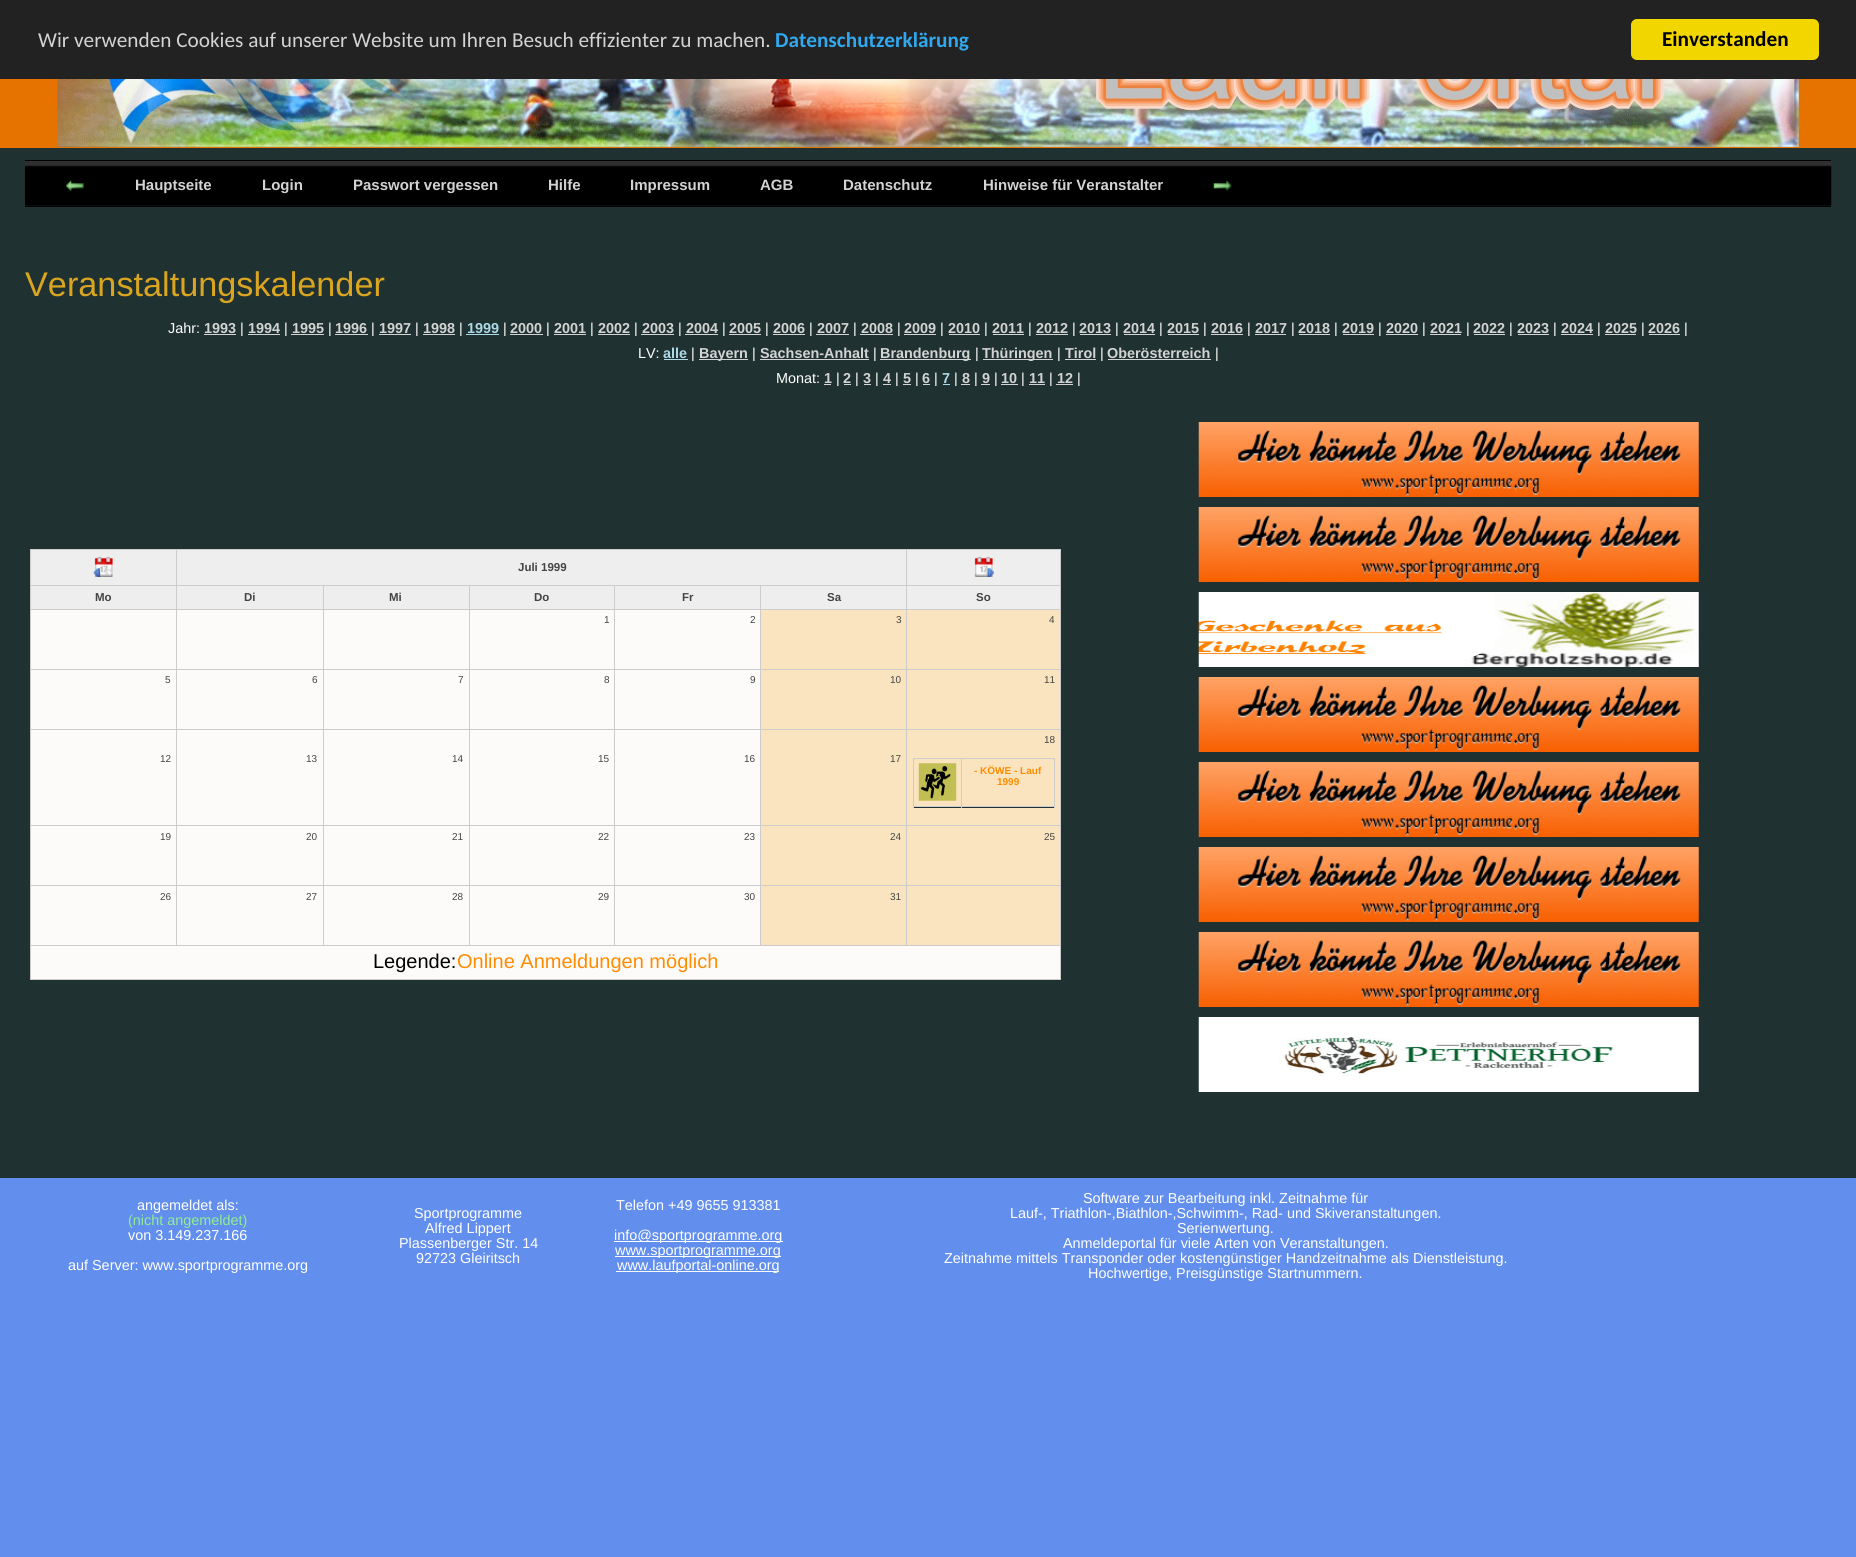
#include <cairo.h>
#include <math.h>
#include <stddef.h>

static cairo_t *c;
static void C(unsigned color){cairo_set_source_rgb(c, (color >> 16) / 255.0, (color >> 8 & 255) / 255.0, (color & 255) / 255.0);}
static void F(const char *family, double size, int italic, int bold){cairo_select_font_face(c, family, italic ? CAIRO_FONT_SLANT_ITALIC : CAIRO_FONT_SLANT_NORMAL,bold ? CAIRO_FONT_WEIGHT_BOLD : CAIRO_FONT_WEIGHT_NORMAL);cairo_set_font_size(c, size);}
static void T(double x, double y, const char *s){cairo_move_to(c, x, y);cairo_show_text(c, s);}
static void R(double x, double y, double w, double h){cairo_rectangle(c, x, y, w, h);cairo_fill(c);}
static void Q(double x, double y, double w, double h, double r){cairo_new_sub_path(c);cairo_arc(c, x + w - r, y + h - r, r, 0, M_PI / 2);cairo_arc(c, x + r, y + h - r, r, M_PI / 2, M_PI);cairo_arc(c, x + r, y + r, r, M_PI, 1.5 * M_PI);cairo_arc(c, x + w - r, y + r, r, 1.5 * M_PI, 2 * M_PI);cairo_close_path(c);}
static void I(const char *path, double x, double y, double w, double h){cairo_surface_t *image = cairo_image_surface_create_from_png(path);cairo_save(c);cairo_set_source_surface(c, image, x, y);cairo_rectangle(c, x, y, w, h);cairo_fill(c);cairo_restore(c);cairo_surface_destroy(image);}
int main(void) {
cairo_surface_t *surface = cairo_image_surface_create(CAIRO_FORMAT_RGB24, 1856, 1557);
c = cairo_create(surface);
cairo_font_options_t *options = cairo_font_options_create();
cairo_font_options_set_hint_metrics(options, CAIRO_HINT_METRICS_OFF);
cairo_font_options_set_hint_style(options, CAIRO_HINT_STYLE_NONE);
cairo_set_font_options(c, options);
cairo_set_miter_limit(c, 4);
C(0x1f3130);
cairo_paint(c);
C(0x222222);
R(0,0,1856,79);
F("Carlito",21.25,0,0);
C(0xd3d3d3);
T(38,47,"Wir verwenden Cookies auf unserer Website um Ihren Besuch effizienter zu machen.");
F("Carlito",21.25,0,1);
C(0x31a8f0);
T(775,47,"Datenschutzerklärung");
C(0xf1d600);
Q(1631,19,188,41,6);
cairo_fill(c);
C(0x000000);
T(1662,46,"Einverstanden");
C(0xe67300);
R(0,79,1856,69);
I("1.png",57,79,1742,68);
I("2.png",25,160,1807,46);
C(0x000000);
R(25,160,1806,1);
R(25,206,1806,1);
I("3.png",66,180,18,11);
F("Liberation Sans",15,0,1);
C(0xd3d3d3);
T(135,190,"Hauptseite");
T(262,190,"Login");
T(353,190,"Passwort vergessen");
T(548,190,"Hilfe");
T(630,190,"Impressum");
T(760,190,"AGB");
T(843,190,"Datenschutz");
T(983,190,"Hinweise für Veranstalter");
I("4.png",1213,180,19,11);
F("Liberation Sans",34.25,0,0);
C(0xdaa520);
T(25,296,"Veranstaltungskalender");
F("Liberation Sans",14.4,0,0);
C(0xffffff);
T(168,333,"Jahr:");
F("Liberation Sans",14.4,0,1);
C(0xd3d3d3);
T(204,333,"1993");
R(204,334,32,1);
F("Liberation Sans",14.4,0,0);
C(0xffffff);
T(240,333,"|");
F("Liberation Sans",14.4,0,1);
C(0xd3d3d3);
T(248,333,"1994");
R(248,334,32,1);
F("Liberation Sans",14.4,0,0);
C(0xffffff);
T(284,333,"|");
F("Liberation Sans",14.4,0,1);
C(0xd3d3d3);
T(292,333,"1995");
R(291,334,33,1);
F("Liberation Sans",14.4,0,0);
C(0xffffff);
T(328,333,"|");
F("Liberation Sans",14.4,0,1);
C(0xd3d3d3);
T(335,333,"1996");
R(335,334,33,1);
F("Liberation Sans",14.4,0,0);
C(0xffffff);
T(371,333,"|");
F("Liberation Sans",14.4,0,1);
C(0xd3d3d3);
T(379,333,"1997");
R(379,334,32,1);
F("Liberation Sans",14.4,0,0);
C(0xffffff);
T(415,333,"|");
F("Liberation Sans",14.4,0,1);
C(0xd3d3d3);
T(423,333,"1998");
R(423,334,32,1);
F("Liberation Sans",14.4,0,0);
C(0xffffff);
T(459,333,"|");
F("Liberation Sans",14.4,0,1);
C(0xadd8e6);
T(467,333,"1999");
R(466,334,33,1);
F("Liberation Sans",14.4,0,0);
C(0xffffff);
T(503,333,"|");
F("Liberation Sans",14.4,0,1);
C(0xd3d3d3);
T(510,333,"2000");
R(510,334,33,1);
F("Liberation Sans",14.4,0,0);
C(0xffffff);
T(546,333,"|");
F("Liberation Sans",14.4,0,1);
C(0xd3d3d3);
T(554,333,"2001");
R(554,334,32,1);
F("Liberation Sans",14.4,0,0);
C(0xffffff);
T(590,333,"|");
F("Liberation Sans",14.4,0,1);
C(0xd3d3d3);
T(598,333,"2002");
R(598,334,32,1);
F("Liberation Sans",14.4,0,0);
C(0xffffff);
T(634,333,"|");
F("Liberation Sans",14.4,0,1);
C(0xd3d3d3);
T(642,333,"2003");
R(641,334,33,1);
F("Liberation Sans",14.4,0,0);
C(0xffffff);
T(678,333,"|");
F("Liberation Sans",14.4,0,1);
C(0xd3d3d3);
T(686,333,"2004");
R(685,334,33,1);
F("Liberation Sans",14.4,0,0);
C(0xffffff);
T(722,333,"|");
F("Liberation Sans",14.4,0,1);
C(0xd3d3d3);
T(729,333,"2005");
R(729,334,32,1);
F("Liberation Sans",14.4,0,0);
C(0xffffff);
T(765,333,"|");
F("Liberation Sans",14.4,0,1);
C(0xd3d3d3);
T(773,333,"2006");
R(773,334,32,1);
F("Liberation Sans",14.4,0,0);
C(0xffffff);
T(809,333,"|");
F("Liberation Sans",14.4,0,1);
C(0xd3d3d3);
T(817,333,"2007");
R(816,334,33,1);
F("Liberation Sans",14.4,0,0);
C(0xffffff);
T(853,333,"|");
F("Liberation Sans",14.4,0,1);
C(0xd3d3d3);
T(861,333,"2008");
R(860,334,33,1);
F("Liberation Sans",14.4,0,0);
C(0xffffff);
T(897,333,"|");
F("Liberation Sans",14.4,0,1);
C(0xd3d3d3);
T(904,333,"2009");
R(904,334,32,1);
F("Liberation Sans",14.4,0,0);
C(0xffffff);
T(940,333,"|");
F("Liberation Sans",14.4,0,1);
C(0xd3d3d3);
T(948,333,"2010");
R(949,334,31,1);
F("Liberation Sans",14.4,0,0);
C(0xffffff);
T(984,333,"|");
F("Liberation Sans",14.4,0,1);
C(0xd3d3d3);
T(992,333,"2011");
R(993,334,31,1);
F("Liberation Sans",14.4,0,0);
C(0xffffff);
T(1028,333,"|");
F("Liberation Sans",14.4,0,1);
C(0xd3d3d3);
T(1036,333,"2012");
R(1036,334,32,1);
F("Liberation Sans",14.4,0,0);
C(0xffffff);
T(1072,333,"|");
F("Liberation Sans",14.4,0,1);
C(0xd3d3d3);
T(1079,333,"2013");
R(1080,334,31,1);
F("Liberation Sans",14.4,0,0);
C(0xffffff);
T(1115,333,"|");
F("Liberation Sans",14.4,0,1);
C(0xd3d3d3);
T(1123,333,"2014");
R(1124,334,31,1);
F("Liberation Sans",14.4,0,0);
C(0xffffff);
T(1159,333,"|");
F("Liberation Sans",14.4,0,1);
C(0xd3d3d3);
T(1167,333,"2015");
R(1168,334,31,1);
F("Liberation Sans",14.4,0,0);
C(0xffffff);
T(1203,333,"|");
F("Liberation Sans",14.4,0,1);
C(0xd3d3d3);
T(1211,333,"2016");
R(1211,334,32,1);
F("Liberation Sans",14.4,0,0);
C(0xffffff);
T(1247,333,"|");
F("Liberation Sans",14.4,0,1);
C(0xd3d3d3);
T(1255,333,"2017");
R(1255,334,31,1);
F("Liberation Sans",14.4,0,0);
C(0xffffff);
T(1291,333,"|");
F("Liberation Sans",14.4,0,1);
C(0xd3d3d3);
T(1298,333,"2018");
R(1299,334,31,1);
F("Liberation Sans",14.4,0,0);
C(0xffffff);
T(1334,333,"|");
F("Liberation Sans",14.4,0,1);
C(0xd3d3d3);
T(1342,333,"2019");
R(1343,334,31,1);
F("Liberation Sans",14.4,0,0);
C(0xffffff);
T(1378,333,"|");
F("Liberation Sans",14.4,0,1);
C(0xd3d3d3);
T(1386,333,"2020");
R(1386,334,32,1);
F("Liberation Sans",14.4,0,0);
C(0xffffff);
T(1422,333,"|");
F("Liberation Sans",14.4,0,1);
C(0xd3d3d3);
T(1430,333,"2021");
R(1430,334,31,1);
F("Liberation Sans",14.4,0,0);
C(0xffffff);
T(1466,333,"|");
F("Liberation Sans",14.4,0,1);
C(0xd3d3d3);
T(1473,333,"2022");
R(1474,334,31,1);
F("Liberation Sans",14.4,0,0);
C(0xffffff);
T(1509,333,"|");
F("Liberation Sans",14.4,0,1);
C(0xd3d3d3);
T(1517,333,"2023");
R(1518,334,31,1);
F("Liberation Sans",14.4,0,0);
C(0xffffff);
T(1553,333,"|");
F("Liberation Sans",14.4,0,1);
C(0xd3d3d3);
T(1561,333,"2024");
R(1561,334,32,1);
F("Liberation Sans",14.4,0,0);
C(0xffffff);
T(1597,333,"|");
F("Liberation Sans",14.4,0,1);
C(0xd3d3d3);
T(1605,333,"2025");
R(1605,334,31,1);
F("Liberation Sans",14.4,0,0);
C(0xffffff);
T(1641,333,"|");
F("Liberation Sans",14.4,0,1);
C(0xd3d3d3);
T(1648,333,"2026");
R(1649,334,31,1);
F("Liberation Sans",14.4,0,0);
C(0xffffff);
T(1684,333,"|");
T(638,358,"LV:");
F("Liberation Sans",14.4,0,1);
C(0xadd8e6);
T(663,358,"alle");
R(664,359,24,1);
F("Liberation Sans",14.4,0,0);
C(0xffffff);
T(691,358,"|");
C(0xd3d3d3);
R(699,359,49,1);
F("Liberation Sans",14.4,0,1);
T(699,358,"Bayern");
F("Liberation Sans",14.4,0,0);
C(0xffffff);
T(752,358,"|");
F("Liberation Sans",14.4,0,1);
C(0xd3d3d3);
T(760,358,"Sachsen-Anhalt");
R(760,359,109,1);
F("Liberation Sans",14.4,0,0);
C(0xffffff);
T(873,358,"|");
C(0xd3d3d3);
R(880,359,91,1);
F("Liberation Sans",14.4,0,1);
T(880,358,"Brandenburg");
F("Liberation Sans",14.4,0,0);
C(0xffffff);
T(975,358,"|");
C(0xd3d3d3);
R(983,359,70,1);
F("Liberation Sans",14.4,0,1);
T(982,358,"Thüringen");
F("Liberation Sans",14.4,0,0);
C(0xffffff);
T(1057,358,"|");
F("Liberation Sans",14.4,0,1);
C(0xd3d3d3);
T(1065,358,"Tirol");
R(1065,359,31,1);
F("Liberation Sans",14.4,0,0);
C(0xffffff);
T(1100,358,"|");
F("Liberation Sans",14.4,0,1);
C(0xd3d3d3);
T(1107,358,"Oberösterreich");
R(1108,359,103,1);
F("Liberation Sans",14.4,0,0);
C(0xffffff);
T(1215,358,"|");
T(776,383,"Monat:");
F("Liberation Sans",14.4,0,1);
C(0xd3d3d3);
T(824,383,"1");
R(824,384,7,1);
F("Liberation Sans",14.4,0,0);
C(0xffffff);
T(836,383,"|");
F("Liberation Sans",14.4,0,1);
C(0xd3d3d3);
T(843,383,"2");
R(844,384,7,1);
F("Liberation Sans",14.4,0,0);
C(0xffffff);
T(855,383,"|");
F("Liberation Sans",14.4,0,1);
C(0xd3d3d3);
T(863,383,"3");
R(864,384,7,1);
F("Liberation Sans",14.4,0,0);
C(0xffffff);
T(875,383,"|");
F("Liberation Sans",14.4,0,1);
C(0xd3d3d3);
T(883,383,"4");
R(883,384,8,1);
F("Liberation Sans",14.4,0,0);
C(0xffffff);
T(895,383,"|");
F("Liberation Sans",14.4,0,1);
C(0xd3d3d3);
T(903,383,"5");
R(903,384,8,1);
F("Liberation Sans",14.4,0,0);
C(0xffffff);
T(915,383,"|");
F("Liberation Sans",14.4,0,1);
C(0xd3d3d3);
T(922,383,"6");
R(923,384,7,1);
F("Liberation Sans",14.4,0,0);
C(0xffffff);
T(934,383,"|");
F("Liberation Sans",14.4,0,1);
C(0xadd8e6);
T(942,383,"7");
R(943,384,7,1);
F("Liberation Sans",14.4,0,0);
C(0xffffff);
T(954,383,"|");
F("Liberation Sans",14.4,0,1);
C(0xd3d3d3);
T(962,383,"8");
R(961,384,9,1);
F("Liberation Sans",14.4,0,0);
C(0xffffff);
T(974,383,"|");
F("Liberation Sans",14.4,0,1);
C(0xd3d3d3);
T(982,383,"9");
R(981,384,9,1);
F("Liberation Sans",14.4,0,0);
C(0xffffff);
T(994,383,"|");
F("Liberation Sans",14.4,0,1);
C(0xd3d3d3);
T(1001,383,"10");
R(1001,384,17,1);
F("Liberation Sans",14.4,0,0);
C(0xffffff);
T(1021,383,"|");
F("Liberation Sans",14.4,0,1);
C(0xd3d3d3);
T(1029,383,"11");
R(1029,384,16,1);
F("Liberation Sans",14.4,0,0);
C(0xffffff);
T(1049,383,"|");
F("Liberation Sans",14.4,0,1);
C(0xd3d3d3);
T(1057,383,"12");
R(1056,384,17,1);
F("Liberation Sans",14.4,0,0);
C(0xffffff);
T(1077,383,"|");
C(0xcccccc);
R(30,549,1031,1);
R(1060,549,1,431);
R(30,979,1031,1);
R(30,549,1,431);
C(0xeeeeee);
R(31,550,145,35);
I("5.png",93,557,20,20);
R(177,550,883,35);
C(0xcccccc);
R(906,585,155,1);
C(0xeeeeee);
R(761,586,299,23);
C(0xcccccc);
R(906,609,155,1);
C(0xfae4bf);
R(761,610,299,59);
C(0xcccccc);
R(906,669,155,1);
C(0xfae4bf);
R(761,670,299,59);
C(0xcccccc);
R(906,729,155,1);
C(0xfae4bf);
R(761,730,299,95);
C(0xcccccc);
R(906,825,155,1);
C(0xfae4bf);
R(761,826,299,59);
C(0xcccccc);
R(906,885,155,1);
C(0xfae4bf);
R(761,886,299,59);
C(0xcccccc);
R(30,945,1031,1);
R(906,885,1,61);
R(760,885,148,1);
R(906,825,1,61);
R(760,825,148,1);
R(906,729,1,97);
R(760,729,148,1);
R(906,669,1,61);
R(760,669,148,1);
R(906,609,1,61);
R(760,609,148,1);
R(906,585,1,25);
R(760,585,148,1);
R(760,885,1,61);
R(614,885,147,1);
R(760,825,1,61);
R(614,825,147,1);
R(760,729,1,97);
R(614,729,147,1);
R(760,669,1,61);
R(614,669,147,1);
R(760,609,1,61);
R(614,609,147,1);
R(760,585,1,25);
R(614,585,147,1);
R(614,885,1,61);
R(469,885,146,1);
R(614,825,1,61);
R(469,825,146,1);
R(614,729,1,97);
R(469,729,146,1);
R(614,669,1,61);
R(469,669,146,1);
R(614,609,1,61);
R(469,609,146,1);
R(614,585,1,25);
R(469,585,146,1);
R(469,885,1,61);
R(323,885,147,1);
R(469,825,1,61);
R(323,825,147,1);
R(469,729,1,97);
R(323,729,147,1);
R(469,669,1,61);
R(323,669,147,1);
R(469,609,1,61);
R(323,609,147,1);
R(469,585,1,25);
R(323,585,147,1);
R(323,885,1,61);
R(176,885,148,1);
R(323,825,1,61);
R(176,825,148,1);
R(323,729,1,97);
R(176,729,148,1);
R(323,669,1,61);
R(176,669,148,1);
R(323,609,1,61);
R(176,609,148,1);
R(323,585,1,25);
R(176,585,148,1);
R(176,885,1,61);
R(30,885,148,1);
R(176,825,1,61);
R(30,825,148,1);
R(176,729,1,97);
R(30,729,148,1);
R(176,669,1,61);
R(30,669,148,1);
R(176,609,1,61);
R(30,609,148,1);
R(176,585,1,25);
R(30,585,148,1);
R(176,549,1,37);
F("Liberation Sans",11.5,0,1);
C(0x444444);
T(518,571,"Juli 1999");
C(0xcccccc);
R(906,549,1,37);
I("6.png",974,557,20,20);
C(0xeeeeee);
R(31,586,145,23);
C(0x444444);
T(95,601,"Mo");
C(0xeeeeee);
R(177,586,146,23);
C(0x444444);
T(244,601,"Di");
C(0xeeeeee);
R(324,586,145,23);
C(0x444444);
T(389,601,"Mi");
C(0xeeeeee);
R(470,586,144,23);
C(0x444444);
T(534,601,"Do");
C(0xeeeeee);
R(615,586,145,23);
C(0x444444);
T(682,601,"Fr");
T(827,601,"Sa");
T(976,601,"So");
C(0xfcfbf9);
R(31,610,145,59);
R(177,610,146,59);
R(324,610,145,59);
R(470,610,144,59);
F("Liberation Sans",10,0,0);
C(0x444444);
T(604,623,"1");
C(0xfcfbf9);
R(615,610,145,59);
C(0x444444);
T(750,623,"2");
T(896,623,"3");
T(1049,623,"4");
C(0xfcfbf9);
R(31,670,145,59);
C(0x444444);
T(165,683,"5");
C(0xfcfbf9);
R(177,670,146,59);
C(0x444444);
T(312,683,"6");
C(0xfcfbf9);
R(324,670,145,59);
C(0x444444);
T(458,683,"7");
C(0xfcfbf9);
R(470,670,144,59);
C(0x444444);
T(604,683,"8");
C(0xfcfbf9);
R(615,670,145,59);
C(0x444444);
T(750,683,"9");
T(890,683,"10");
T(1044,683,"11");
C(0xfcfbf9);
R(31,730,145,95);
C(0x444444);
T(160,762,"12");
C(0xfcfbf9);
R(177,730,146,95);
C(0x444444);
T(306,762,"13");
C(0xfcfbf9);
R(324,730,145,95);
C(0x444444);
T(452,762,"14");
C(0xfcfbf9);
R(470,730,144,95);
C(0x444444);
T(598,762,"15");
C(0xfcfbf9);
R(615,730,145,95);
C(0x444444);
T(744,762,"16");
T(890,762,"17");
T(1044,743,"18");
C(0x1f3130);
R(914,807,140,1);
C(0xcccccc);
R(961,758,94,1);
R(1054,758,1,50);
R(961,806,94,1);
R(961,758,1,50);
R(913,758,50,1);
R(913,806,50,1);
R(913,758,1,50);
I("7.png",918,763,39,38);
F("Liberation Sans",10,0,1);
C(0xff8c00);
T(974,774,"- KÖWE - Lauf");
T(997,785,"1999");
C(0xfcfbf9);
R(31,826,145,59);
F("Liberation Sans",10,0,0);
C(0x444444);
T(160,840,"19");
C(0xfcfbf9);
R(177,826,146,59);
C(0x444444);
T(306,840,"20");
C(0xfcfbf9);
R(324,826,145,59);
C(0x444444);
T(452,840,"21");
C(0xfcfbf9);
R(470,826,144,59);
C(0x444444);
T(598,840,"22");
C(0xfcfbf9);
R(615,826,145,59);
C(0x444444);
T(744,840,"23");
T(890,840,"24");
T(1044,840,"25");
C(0xfcfbf9);
R(31,886,145,59);
C(0x444444);
T(160,900,"26");
C(0xfcfbf9);
R(177,886,146,59);
C(0x444444);
T(306,900,"27");
C(0xfcfbf9);
R(324,886,145,59);
C(0x444444);
T(452,900,"28");
C(0xfcfbf9);
R(470,886,144,59);
C(0x444444);
T(598,900,"29");
C(0xfcfbf9);
R(615,886,145,59);
C(0x444444);
T(744,900,"30");
T(890,900,"31");
C(0xfcfbf9);
R(31,946,1029,33);
F("Liberation Sans",20,0,0);
C(0x000000);
T(373,968,"Legende:");
C(0xff8c00);
T(457,968,"Online Anmeldungen möglich");
I("8.png",1198,422,501,75);
I("8.png",1198,507,501,75);
I("9.png",1198,592,501,75);
I("8.png",1198,677,501,75);
I("8.png",1198,762,501,75);
I("8.png",1198,847,501,75);
I("8.png",1198,932,501,75);
I("10.png",1198,1017,501,75);
C(0x628eed);
R(0,1178,1856,379);
F("Liberation Sans",14.4,0,0);
C(0xffffff);
T(137,1210,"angemeldet als:");
C(0x90ee90);
T(128,1225,"(nicht angemeldet)");
C(0xffffff);
T(128,1240,"von 3.149.237.166");
T(68,1270,"auf Server: www.sportprogramme.org");
T(414,1218,"Sportprogramme");
T(425,1233,"Alfred Lippert");
T(399,1248,"Plassenberger Str. 14");
T(416,1263,"92723 Gleiritsch");
T(616,1210,"Telefon +49 9655 913381");
R(614,1241,169,1);
T(614,1240,"info@sportprogramme.org");
R(615,1256,166,1);
T(615,1255,"www.sportprogramme.org");
R(616,1271,163,1);
T(617,1270,"www.laufportal-online.org");
T(1083,1203,"Software zur Bearbeitung inkl. Zeitnahme für");
T(1010,1218,"Lauf-, Triathlon-,Biathlon-,Schwimm-, Rad- und Skiveranstaltungen.");
T(1177,1233,"Serienwertung.");
T(1063,1248,"Anmeldeportal für viele Arten von Veranstaltungen.");
T(944,1263,"Zeitnahme mittels Transponder oder kostengünstiger Handzeitnahme als Dienstleistung.");
T(1088,1278,"Hochwertige, Preisgünstige Startnummern.");
cairo_surface_write_to_png(surface, "o.png");
cairo_font_options_destroy(options);
cairo_destroy(c);
cairo_surface_destroy(surface);
return 0;
}
